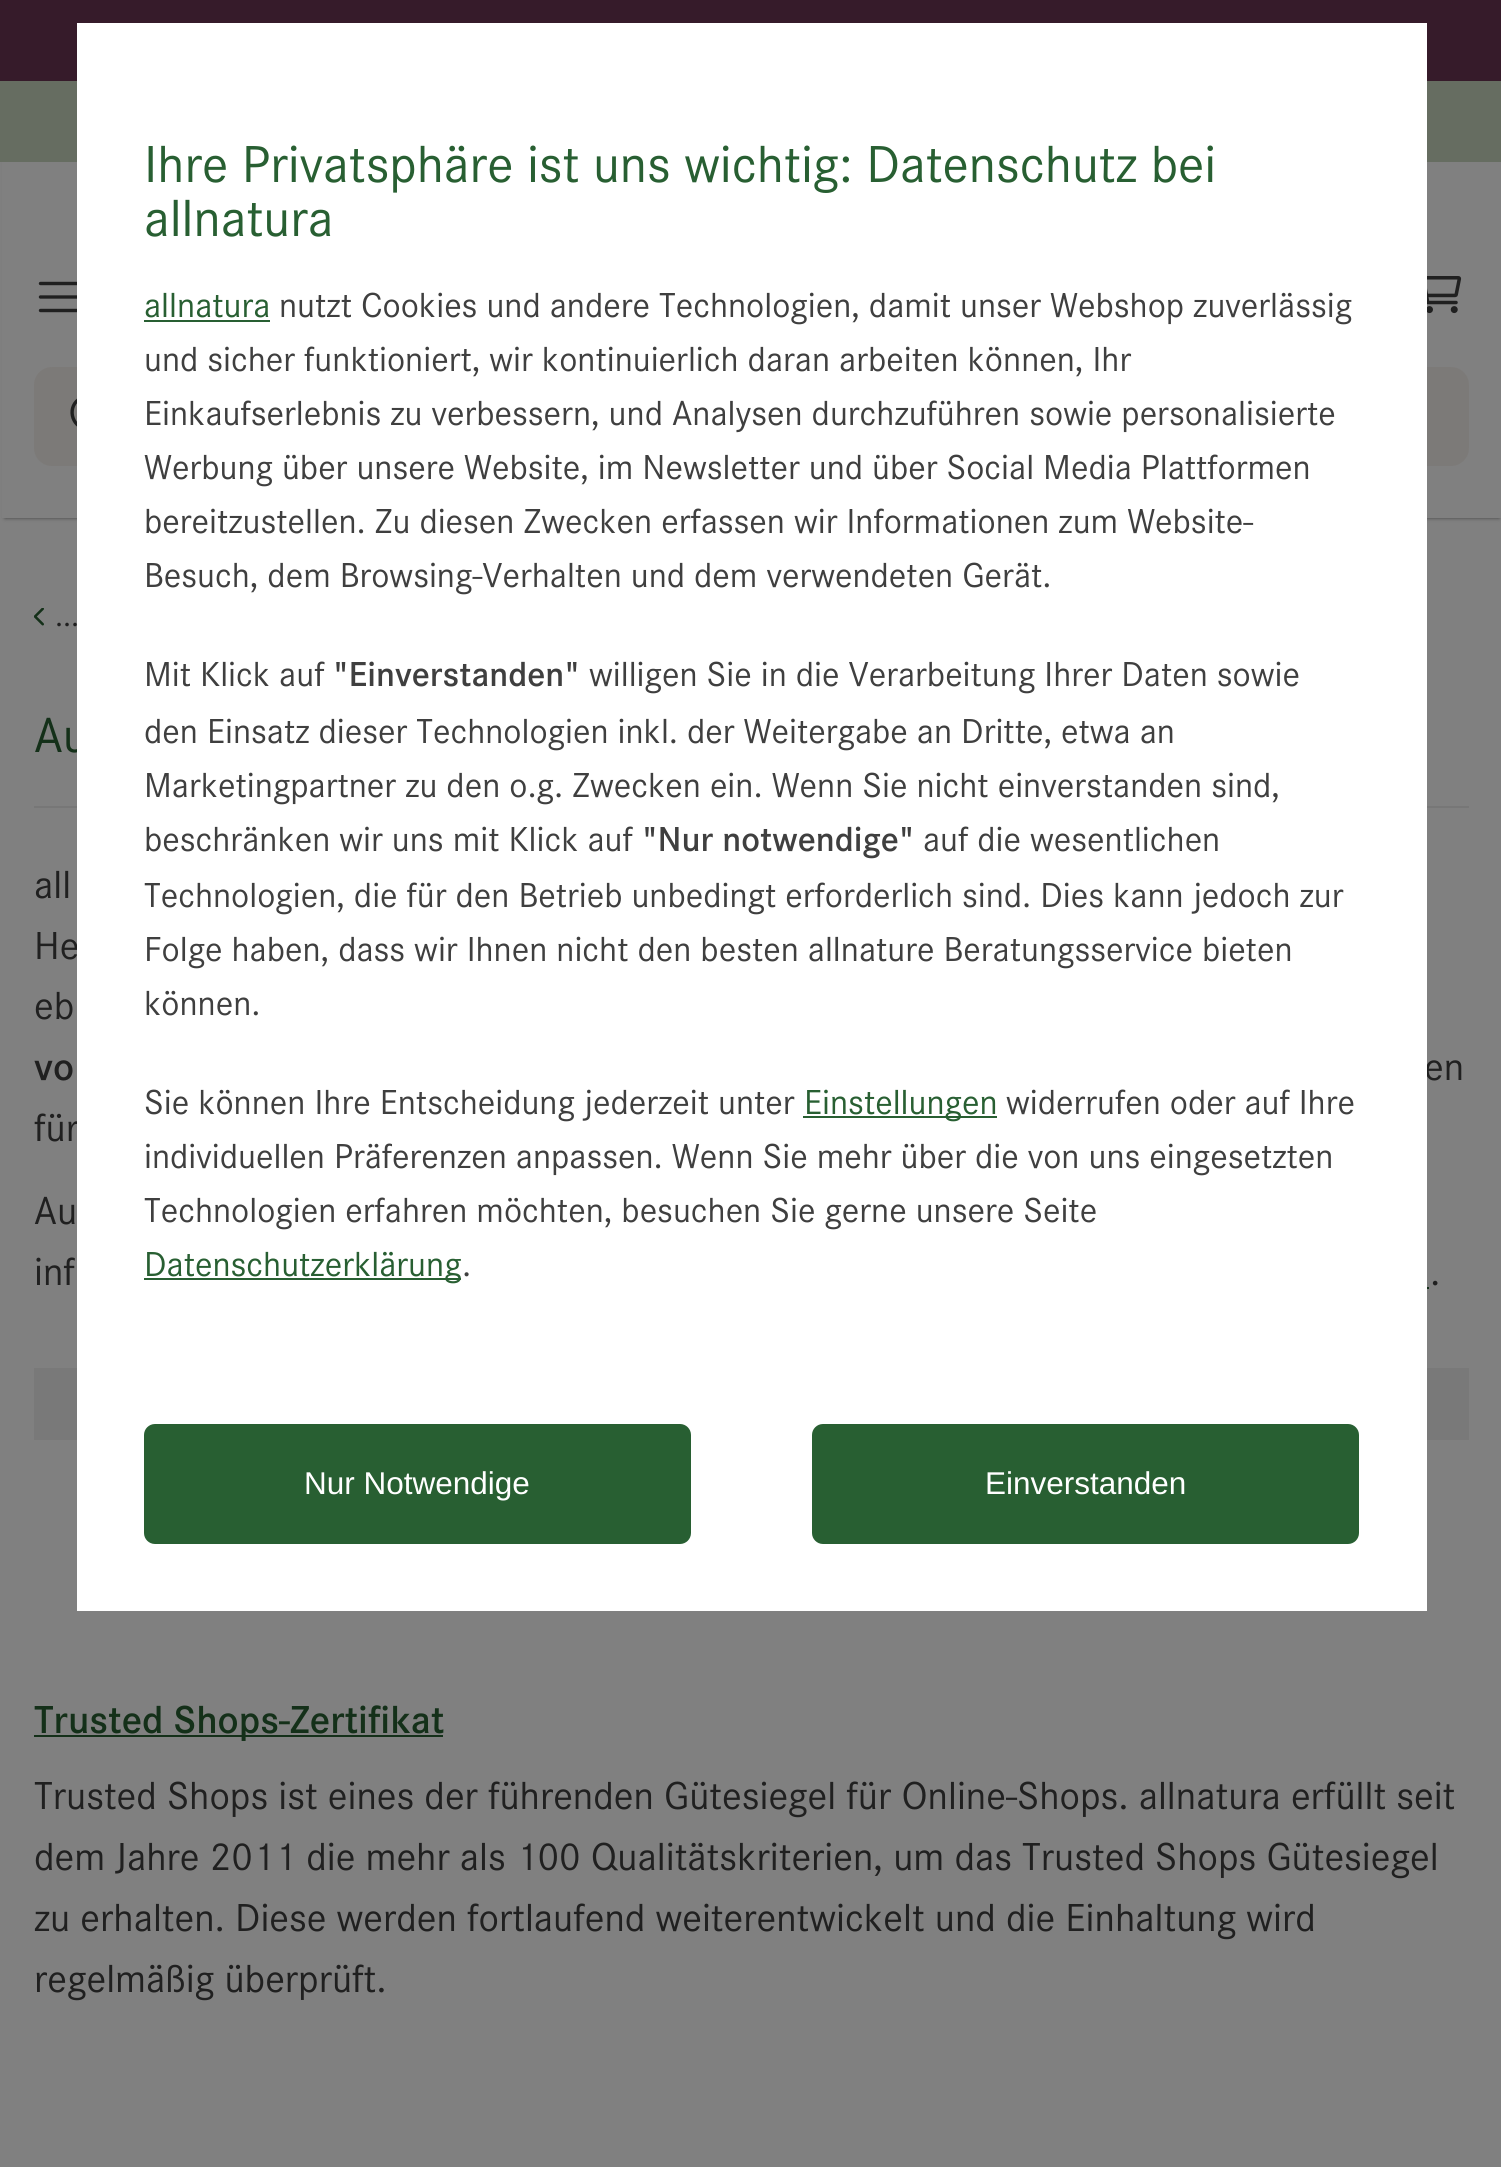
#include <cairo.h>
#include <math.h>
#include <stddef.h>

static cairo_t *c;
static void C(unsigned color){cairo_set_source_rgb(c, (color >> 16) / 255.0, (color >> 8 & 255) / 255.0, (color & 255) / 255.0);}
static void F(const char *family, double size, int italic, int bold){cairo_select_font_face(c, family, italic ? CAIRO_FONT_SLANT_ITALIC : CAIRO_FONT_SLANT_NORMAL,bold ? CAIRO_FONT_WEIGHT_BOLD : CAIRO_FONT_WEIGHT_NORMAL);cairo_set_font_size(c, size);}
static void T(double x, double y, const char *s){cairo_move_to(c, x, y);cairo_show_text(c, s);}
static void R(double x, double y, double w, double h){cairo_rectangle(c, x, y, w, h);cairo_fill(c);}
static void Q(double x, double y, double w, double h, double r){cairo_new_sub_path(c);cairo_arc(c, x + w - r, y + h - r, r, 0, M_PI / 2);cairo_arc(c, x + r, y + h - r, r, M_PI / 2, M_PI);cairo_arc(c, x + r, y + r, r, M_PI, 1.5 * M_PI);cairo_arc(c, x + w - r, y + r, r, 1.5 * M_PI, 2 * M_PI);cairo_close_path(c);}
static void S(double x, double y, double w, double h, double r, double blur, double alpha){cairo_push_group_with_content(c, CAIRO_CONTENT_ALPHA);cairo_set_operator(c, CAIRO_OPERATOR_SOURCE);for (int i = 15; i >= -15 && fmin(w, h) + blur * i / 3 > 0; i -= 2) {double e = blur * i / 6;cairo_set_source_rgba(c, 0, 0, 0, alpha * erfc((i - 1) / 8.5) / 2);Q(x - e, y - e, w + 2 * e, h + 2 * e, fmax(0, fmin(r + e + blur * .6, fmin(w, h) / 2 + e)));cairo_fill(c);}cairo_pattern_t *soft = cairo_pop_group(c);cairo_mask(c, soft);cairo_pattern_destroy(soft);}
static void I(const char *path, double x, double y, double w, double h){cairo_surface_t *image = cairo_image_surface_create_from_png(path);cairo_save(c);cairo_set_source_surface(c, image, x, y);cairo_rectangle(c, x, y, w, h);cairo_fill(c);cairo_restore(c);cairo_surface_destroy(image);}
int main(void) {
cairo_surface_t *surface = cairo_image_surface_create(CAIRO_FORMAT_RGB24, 1501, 2167);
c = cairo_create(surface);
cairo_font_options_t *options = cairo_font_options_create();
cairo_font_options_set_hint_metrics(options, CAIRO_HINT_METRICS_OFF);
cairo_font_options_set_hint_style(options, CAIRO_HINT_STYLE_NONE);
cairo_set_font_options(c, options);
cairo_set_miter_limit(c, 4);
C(0x808080);
cairo_paint(c);
C(0x404040);
S(5,9,1494,509,0,2,1);
C(0x808080);
R(2,162,1499,356);
C(0x361b2a);
R(0,0,1501,81);
C(0x666d61);
R(0,81,1501,81);
C(0x7c7a78);
Q(34,367,1435,99,18);
cairo_fill(c);
cairo_new_path(c);
cairo_move_to(c,88.5,396);
cairo_curve_to(c,85,396,81.5,397,78.5,399.5);
cairo_curve_to(c,66,409,73,429.5,89,429);
cairo_curve_to(c,104,429,111,409.5,99,400);
cairo_curve_to(c,96,397.5,92.5,396,88.5,396);
cairo_close_path(c);
C(0x202020);
cairo_set_line_width(c,3.4);
cairo_stroke(c);
F("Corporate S",31.5,0,0);
T(55,626,"...");
C(0x777777);
R(34,806,1435,2);
F("Corporate S",51,0,0);
C(0x143019);
T(34,752,"Au");
F("Corporate S",40.5,0,0);
C(0x202020);
T(34,959,"He");
T(1424,1080,"en");
T(34,1141,"für");
C(0x797979);
R(34,1368,1435,72);
C(0xffffff);
R(77,23,1350,1588);
F("Corporate S",54,0,0);
C(0x285f32);
T(144,182,"Ihre Privatsphäre ist uns wichtig: Datenschutz bei");
T(144,236,"allnatura");
F("Corporate S",36,0,0);
T(144,317,"allnatura");
R(144,320,126,2);
C(0x3f3f3f);
T(279,317,"nutzt Cookies und andere Technologien, damit unser Webshop zuverlässig");
T(144,371,"und sicher funktioniert, wir kontinuierlich daran arbeiten können, Ihr");
T(144,425,"Einkaufserlebnis zu verbessern, und Analysen durchzuführen sowie personalisierte");
T(144,479,"Werbung über unsere Website, im Newsletter und über Social Media Plattformen");
T(144,533,"bereitzustellen. Zu diesen Zwecken erfassen wir Informationen zum Website-");
T(144,587,"Besuch, dem Browsing-Verhalten und dem verwendeten Gerät.");
T(144,686,"Mit Klick auf");
F("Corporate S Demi",36,0,0);
T(333,686,"\"Einverstanden\"");
F("Corporate S",36,0,0);
T(589,686,"willigen Sie in die Verarbeitung Ihrer Daten sowie");
T(144,743,"den Einsatz dieser Technologien inkl. der Weitergabe an Dritte, etwa an");
T(144,797,"Marketingpartner zu den o.g. Zwecken ein. Wenn Sie nicht einverstanden sind,");
T(144,851,"beschränken wir uns mit Klick auf");
F("Corporate S Demi",36,0,0);
T(642,851,"\"Nur notwendige\"");
F("Corporate S",36,0,0);
T(923,851,"auf die wesentlichen");
T(144,907,"Technologien, die für den Betrieb unbedingt erforderlich sind. Dies kann jedoch zur");
T(144,961,"Folge haben, dass wir Ihnen nicht den besten allnature Beratungsservice bieten");
T(144,1015,"können.");
T(144,1114,"Sie können Ihre Entscheidung jederzeit unter");
C(0x285f32);
R(803,1116,194,2);
T(804,1114,"Einstellungen");
C(0x3f3f3f);
T(1006,1114,"widerrufen oder auf Ihre");
T(144,1168,"individuellen Präferenzen anpassen. Wenn Sie mehr über die von uns eingesetzten");
T(144,1222,"Technologien erfahren möchten, besuchen Sie gerne unsere Seite");
C(0x285f32);
R(144,1278,317,2);
T(144,1276,"Datenschutzerklärung");
C(0x3f3f3f);
T(462,1276,".");
C(0x285f32);
Q(144,1424,547,120,11);
cairo_fill(c);
F("Liberation Sans",31.5,0,0);
C(0xffffff);
T(304,1494,"Nur Notwendige");
C(0x285f32);
Q(812,1424,547,120,11);
cairo_fill(c);
C(0xffffff);
T(985,1494,"Einverstanden");
I("1.png",38,281,39,32);
I("2.png",1427,276,35,38);
I("3.png",34,608,10,18);
F("Corporate S",40.5,0,0);
C(0x202020);
T(34,898,"all");
T(34,1019,"eb");
F("Corporate S Demi",40.5,0,0);
T(34,1080,"vo");
F("Corporate S",40.5,0,0);
T(34,1224,"Au");
T(34,1285,"inf");
T(1430,1285,".");
C(0x143019);
R(1427,1287,2,2);
R(34,1735,409,2);
F("Corporate S Demi",40.5,0,0);
T(34,1733,"Trusted Shops-Zertifikat");
F("Corporate S",40.5,0,0);
C(0x202020);
T(34,1809,"Trusted Shops ist eines der führenden Gütesiegel für Online-Shops. allnatura erfüllt seit");
T(34,1870,"dem Jahre 2011 die mehr als 100 Qualitätskriterien, um das Trusted Shops Gütesiegel");
T(34,1931,"zu erhalten. Diese werden fortlaufend weiterentwickelt und die Einhaltung wird");
T(34,1992,"regelmäßig überprüft.");
cairo_surface_write_to_png(surface, "o.png");
cairo_font_options_destroy(options);
cairo_destroy(c);
cairo_surface_destroy(surface);
return 0;
}
